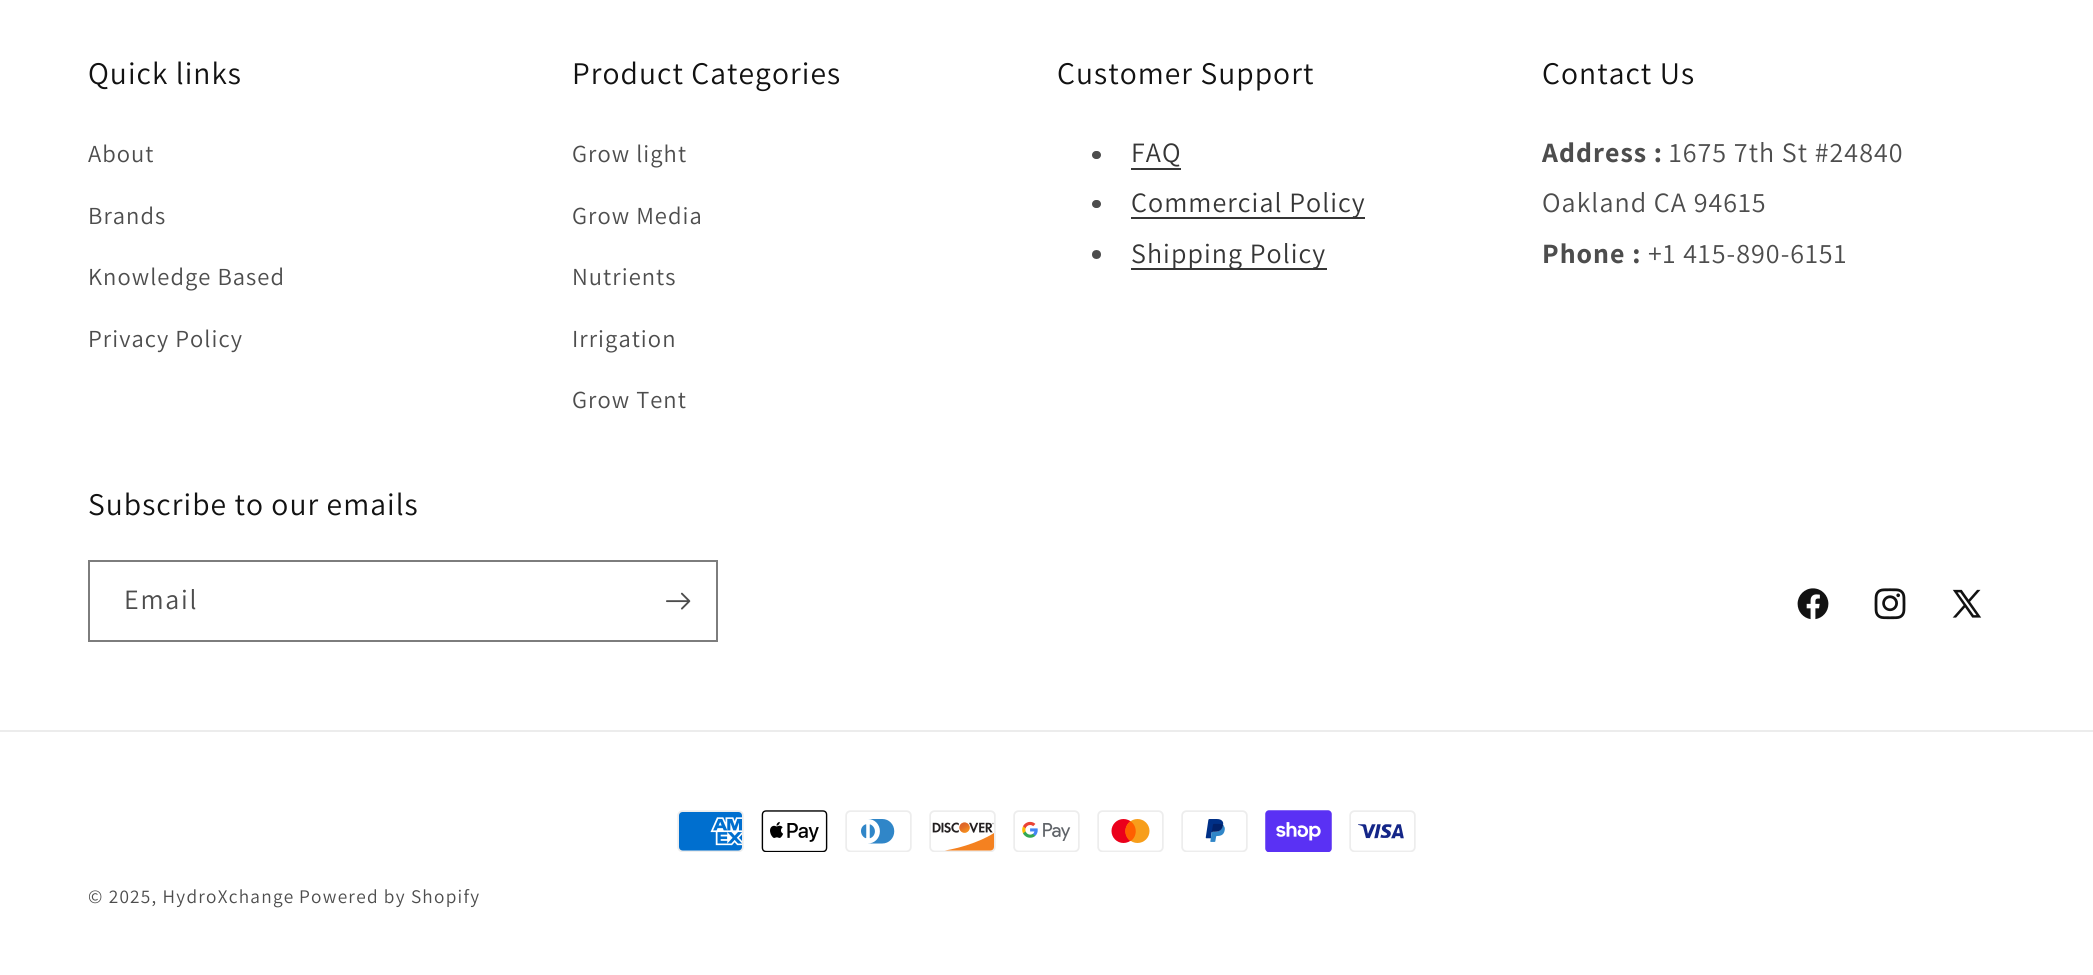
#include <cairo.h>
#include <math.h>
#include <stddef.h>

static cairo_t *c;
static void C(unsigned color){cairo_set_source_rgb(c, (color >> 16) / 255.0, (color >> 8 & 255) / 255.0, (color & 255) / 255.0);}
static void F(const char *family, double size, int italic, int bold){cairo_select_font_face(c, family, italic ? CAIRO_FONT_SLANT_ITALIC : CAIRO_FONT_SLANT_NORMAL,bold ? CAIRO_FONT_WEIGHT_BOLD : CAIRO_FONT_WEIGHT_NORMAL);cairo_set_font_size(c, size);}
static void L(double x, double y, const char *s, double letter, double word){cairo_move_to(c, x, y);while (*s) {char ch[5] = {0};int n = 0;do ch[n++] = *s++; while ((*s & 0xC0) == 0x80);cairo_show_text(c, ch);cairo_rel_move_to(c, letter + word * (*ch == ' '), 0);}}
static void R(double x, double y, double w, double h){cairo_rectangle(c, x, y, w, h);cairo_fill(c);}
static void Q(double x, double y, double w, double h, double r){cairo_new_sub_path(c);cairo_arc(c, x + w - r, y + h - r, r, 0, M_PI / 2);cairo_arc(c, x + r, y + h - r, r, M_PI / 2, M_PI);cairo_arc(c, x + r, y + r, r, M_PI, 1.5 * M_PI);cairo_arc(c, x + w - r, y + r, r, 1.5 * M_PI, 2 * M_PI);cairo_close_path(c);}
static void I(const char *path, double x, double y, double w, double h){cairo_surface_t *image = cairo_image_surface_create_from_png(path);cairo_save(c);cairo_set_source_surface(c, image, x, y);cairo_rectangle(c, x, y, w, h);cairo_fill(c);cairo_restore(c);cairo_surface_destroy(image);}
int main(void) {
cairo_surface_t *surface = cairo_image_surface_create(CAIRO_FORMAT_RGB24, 2093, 975);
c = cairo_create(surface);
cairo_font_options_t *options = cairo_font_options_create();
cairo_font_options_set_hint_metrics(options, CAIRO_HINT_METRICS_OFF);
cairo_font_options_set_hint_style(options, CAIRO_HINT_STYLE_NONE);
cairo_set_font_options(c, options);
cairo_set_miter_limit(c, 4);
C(0xffffff);
cairo_paint(c);
F("Assistant",31.5,0,0);
C(0x121212);
L(88,84,"Quick links",1.05,0);
F("Assistant",24.5,0,0);
C(0x4d4d4d);
L(88,162,"About",1.05,0);
L(88,224,"Brands",1.05,0);
L(88,285,"Knowledge Based",1.05,0);
L(88,347,"Privacy Policy",1.05,0);
F("Assistant",31.5,0,0);
C(0x121212);
L(572,84,"Product Categories",1.05,0);
F("Assistant",24.5,0,0);
C(0x4d4d4d);
L(572,162,"Grow light",1.05,0);
L(572,224,"Grow Media",1.05,0);
L(572,285,"Nutrients",1.05,0);
L(572,347,"Irrigation",1.05,0);
L(572,408,"Grow Tent",1.05,0);
F("Assistant",31.5,0,0);
C(0x121212);
L(1057,84,"Customer Support",1.05,0);
C(0x4d4d4d);
Q(1092,151,9,8,4);
cairo_fill(c);
F("Assistant",28,0,0);
C(0x363636);
L(1131,162,"FAQ",1.05,0);
R(1131,168,50,2);
C(0x4d4d4d);
Q(1092,200,9,8,4);
cairo_fill(c);
C(0x363636);
R(1131,217,234,2);
L(1131,212,"Commercial Policy",1.05,0);
C(0x4d4d4d);
cairo_new_path(c);
cairo_arc(c,1096.5,254.5,4.5,0,2 * M_PI);
cairo_fill(c);
C(0x363636);
R(1131,268,196,2);
L(1131,263,"Shipping Policy",1.05,0);
F("Assistant",31.5,0,0);
C(0x121212);
L(1542,84,"Contact Us",1.05,0);
F("Assistant",28,0,1);
C(0x4d4d4d);
L(1542,162,"Address :",1.05,0);
F("Assistant",28,0,0);
L(1669,162,"1675 7th St #24840",1.05,0);
L(1542,212,"Oakland CA 94615",1.05,0);
F("Assistant",28,0,1);
L(1542,263,"Phone :",1.05,0);
F("Assistant",28,0,0);
L(1648,263,"+1 415-890-6151",1.05,0);
F("Assistant",31.5,0,0);
C(0x121212);
L(88,515,"Subscribe to our emails",1.05,0);
cairo_rectangle(c,89,561,628,80);
C(0x7d7d7d);
cairo_stroke(c);
F("Assistant",28,0,0);
C(0x4d4d4d);
L(124,609,"Email",1.75,0);
I("1.png",666,592,25,18);
I("2.png",1797,588,32,32);
I("3.png",1874,588,32,32);
I("4.png",1952,589,30,29);
C(0xececec);
R(0,730,2093,2);
I("5.png",677,810,67,42);
I("6.png",761,810,67,42);
I("7.png",845,810,67,42);
I("8.png",929,810,67,42);
I("9.png",1013,810,67,42);
I("10.png",1097,810,67,42);
I("11.png",1181,810,67,42);
I("12.png",1265,810,67,42);
I("13.png",1349,810,67,42);
F("Assistant",19.25,0,0);
C(0x4d4d4d);
L(88,903,"© 2025, HydroXchange",1.25,0);
L(299,903,"Powered by Shopify",1.25,0);
cairo_surface_write_to_png(surface, "o.png");
cairo_font_options_destroy(options);
cairo_destroy(c);
cairo_surface_destroy(surface);
return 0;
}
